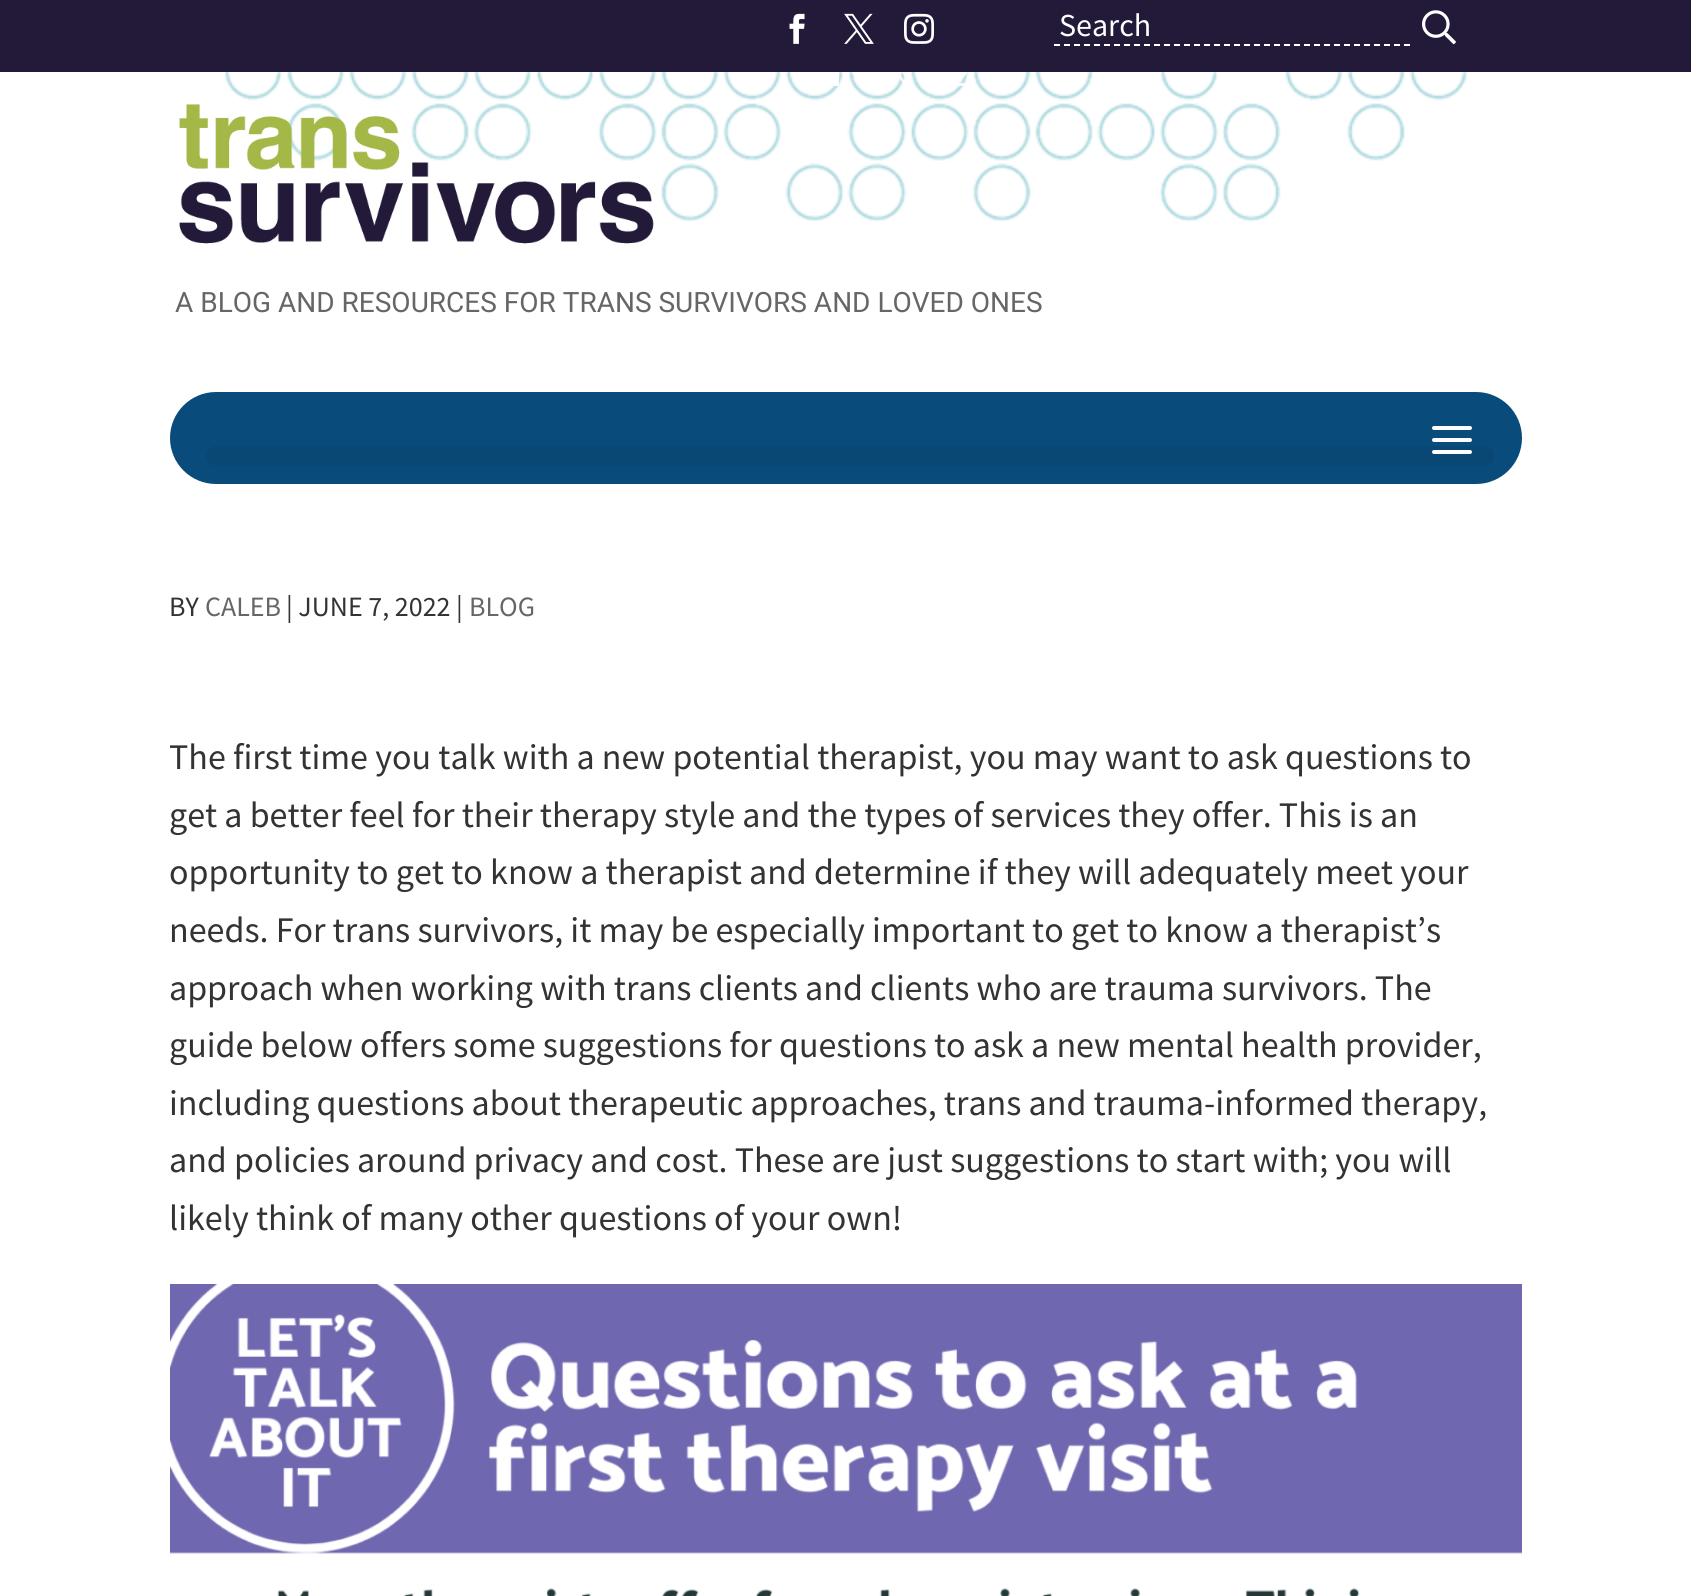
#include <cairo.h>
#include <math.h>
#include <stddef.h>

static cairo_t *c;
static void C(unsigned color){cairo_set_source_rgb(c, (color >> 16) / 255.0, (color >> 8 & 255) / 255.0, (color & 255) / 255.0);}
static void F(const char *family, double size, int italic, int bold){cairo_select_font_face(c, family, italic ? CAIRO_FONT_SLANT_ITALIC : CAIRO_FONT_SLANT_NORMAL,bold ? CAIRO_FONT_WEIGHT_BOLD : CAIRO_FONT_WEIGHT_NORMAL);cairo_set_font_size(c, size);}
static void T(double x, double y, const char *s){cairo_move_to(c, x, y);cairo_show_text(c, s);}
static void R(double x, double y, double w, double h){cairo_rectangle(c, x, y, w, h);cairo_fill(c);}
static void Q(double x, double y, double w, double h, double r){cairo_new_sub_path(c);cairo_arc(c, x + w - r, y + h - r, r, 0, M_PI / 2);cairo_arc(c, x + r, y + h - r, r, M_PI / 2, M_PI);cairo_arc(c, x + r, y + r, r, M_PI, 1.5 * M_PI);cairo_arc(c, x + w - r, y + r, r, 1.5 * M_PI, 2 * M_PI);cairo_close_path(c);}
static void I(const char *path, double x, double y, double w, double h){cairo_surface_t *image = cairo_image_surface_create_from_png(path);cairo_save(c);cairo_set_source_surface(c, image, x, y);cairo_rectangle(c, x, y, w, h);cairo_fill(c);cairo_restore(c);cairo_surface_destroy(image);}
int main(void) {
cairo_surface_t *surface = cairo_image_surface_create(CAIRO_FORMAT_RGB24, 1691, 1596);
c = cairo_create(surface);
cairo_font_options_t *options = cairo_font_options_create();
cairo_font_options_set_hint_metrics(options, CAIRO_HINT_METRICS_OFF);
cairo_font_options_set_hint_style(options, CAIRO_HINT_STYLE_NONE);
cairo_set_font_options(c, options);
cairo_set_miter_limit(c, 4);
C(0xffffff);
cairo_paint(c);
C(0x231a3a);
R(0,0,1691,72);
I("1.png",789,13,16,31);
I("2.png",844,13,30,31);
I("3.png",904,13,30,31);
cairo_new_path(c);
cairo_move_to(c,1054,45);
cairo_line_to(c,1410,45);
C(0xffffff);
cairo_set_dash(c,(double[]){6,4},2,0);
cairo_stroke(c);
F("Source Sans Pro",32,0,0);
T(1059,36,"Search");
I("4.png",1422,10,34,35);
I("8.png",224,72,1244,150);
I("5.png",833,72,6,14);
I("6.png",886,72,26,11);
I("7.png",944,72,30,14);
I("9.png",179,104,475,140);
F("Roboto",28,0,0);
C(0x666666);
T(175,312,"A BLOG AND RESOURCES FOR TRANS SURVIVORS AND LOVED ONES");
C(0x094b7b);
Q(170,392,1352,92,46);
cairo_fill(c);
C(0x094775);
Q(206,446,1288,20,10);
cairo_fill(c);
I("10.png",1432,426,40,28);
F("Source Sans Pro",28,0,0);
C(0x333333);
T(169,616,"BY");
C(0x666666);
T(205,616,"CALEB");
C(0x333333);
T(286,616,"| JUNE 7, 2022 |");
C(0x666666);
T(469,616,"BLOG");
F("Source Sans Pro",36,0,0);
C(0x333333);
T(169,769,"The first time you talk with a new potential therapist, you may want to ask questions to");
T(169,827,"get a better feel for their therapy style and the types of services they offer. This is an");
T(169,884,"opportunity to get to know a therapist and determine if they will adequately meet your");
T(169,942,"needs. For trans survivors, it may be especially important to get to know a therapist’s");
T(169,1000,"approach when working with trans clients and clients who are trauma survivors. The");
T(169,1057,"guide below offers some suggestions for questions to ask a new mental health provider,");
T(169,1115,"including questions about therapeutic approaches, trans and trauma-informed therapy,");
T(169,1172,"and policies around privacy and cost. These are just suggestions to start with; you will");
T(169,1230,"likely think of many other questions of your own!");
I("11.png",170,1284,1352,312);
cairo_surface_write_to_png(surface, "o.png");
cairo_font_options_destroy(options);
cairo_destroy(c);
cairo_surface_destroy(surface);
return 0;
}
